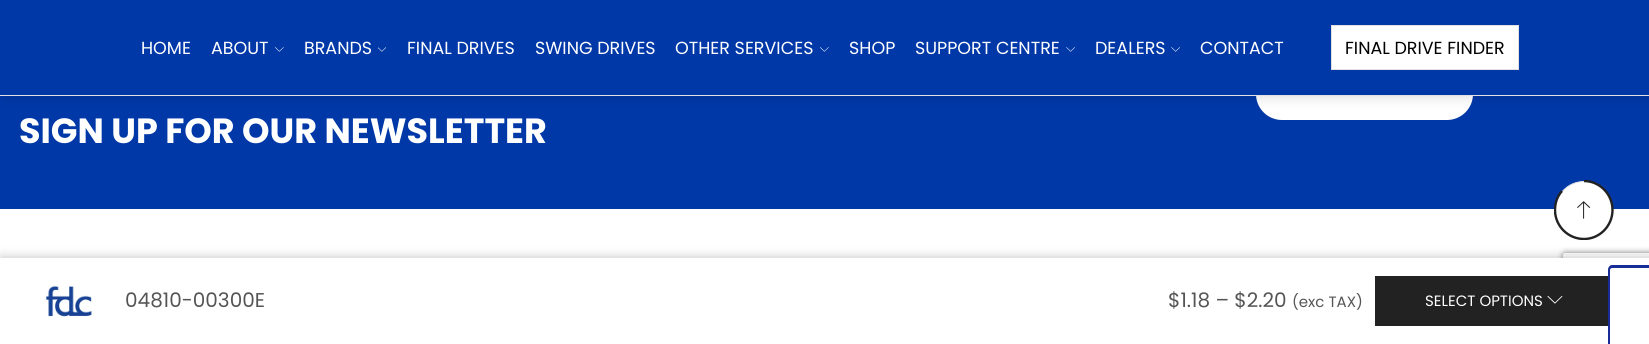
#include <cairo.h>
#include <math.h>
#include <stddef.h>

static cairo_t *c;
static void C(unsigned color){cairo_set_source_rgb(c, (color >> 16) / 255.0, (color >> 8 & 255) / 255.0, (color & 255) / 255.0);}
static void F(const char *family, double size, int italic, int bold){cairo_select_font_face(c, family, italic ? CAIRO_FONT_SLANT_ITALIC : CAIRO_FONT_SLANT_NORMAL,bold ? CAIRO_FONT_WEIGHT_BOLD : CAIRO_FONT_WEIGHT_NORMAL);cairo_set_font_size(c, size);}
static void T(double x, double y, const char *s){cairo_move_to(c, x, y);cairo_show_text(c, s);}
static void R(double x, double y, double w, double h){cairo_rectangle(c, x, y, w, h);cairo_fill(c);}
static void Q(double x, double y, double w, double h, double r){cairo_new_sub_path(c);cairo_arc(c, x + w - r, y + h - r, r, 0, M_PI / 2);cairo_arc(c, x + r, y + h - r, r, M_PI / 2, M_PI);cairo_arc(c, x + r, y + r, r, M_PI, 1.5 * M_PI);cairo_arc(c, x + w - r, y + r, r, 1.5 * M_PI, 2 * M_PI);cairo_close_path(c);}
static void S(double x, double y, double w, double h, double r, double blur, double alpha){cairo_push_group_with_content(c, CAIRO_CONTENT_ALPHA);cairo_set_operator(c, CAIRO_OPERATOR_SOURCE);for (int i = 15; i >= -15 && fmin(w, h) + blur * i / 3 > 0; i -= 2) {double e = blur * i / 6;cairo_set_source_rgba(c, 0, 0, 0, alpha * erfc((i - 1) / 8.5) / 2);Q(x - e, y - e, w + 2 * e, h + 2 * e, fmax(0, fmin(r + e + blur * .6, fmin(w, h) / 2 + e)));cairo_fill(c);}cairo_pattern_t *soft = cairo_pop_group(c);cairo_mask(c, soft);cairo_pattern_destroy(soft);}
static void I(const char *path, double x, double y, double w, double h){cairo_surface_t *image = cairo_image_surface_create_from_png(path);cairo_save(c);cairo_set_source_surface(c, image, x, y);cairo_rectangle(c, x, y, w, h);cairo_fill(c);cairo_restore(c);cairo_surface_destroy(image);}
int main(void) {
cairo_surface_t *surface = cairo_image_surface_create(CAIRO_FORMAT_RGB24, 1649, 344);
c = cairo_create(surface);
cairo_font_options_t *options = cairo_font_options_create();
cairo_font_options_set_hint_metrics(options, CAIRO_HINT_METRICS_OFF);
cairo_font_options_set_hint_style(options, CAIRO_HINT_STYLE_NONE);
cairo_set_font_options(c, options);
cairo_set_miter_limit(c, 4);
C(0xffffff);
cairo_paint(c);
C(0x0038a8);
R(0,96,1649,113);
C(0xffffff);
Q(1256,68,217,52,26);
cairo_fill(c);
C(0x000000);
S(3,0,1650,96,0,7.5,.15);
C(0x0038a8);
R(0,0,1649,95);
C(0xe1e1e1);
R(0,95,1649,1);
F("Poppins",17.5,0,0);
C(0xffffff);
T(141,54,"HOME");
T(211,54,"ABOUT");
I("1.png",275,47,9,5);
T(304,54,"BRANDS");
I("2.png",378,47,8,5);
T(407,54,"FINAL DRIVES");
T(535,54,"SWING DRIVES");
T(675,54,"OTHER SERVICES");
I("1.png",820,47,9,5);
T(849,54,"SHOP");
T(915,54,"SUPPORT CENTRE");
I("3.png",1066,47,9,5);
T(1095,54,"DEALERS");
I("3.png",1171,47,9,5);
T(1200,54,"CONTACT");
cairo_rectangle(c,1331.5,25.5,187,44);
cairo_fill_preserve(c);
C(0xe1e1e1);
cairo_set_line_width(c,1);
cairo_stroke(c);
C(0x000000);
T(1345,54,"FINAL DRIVE FINDER");
F("Poppins",35,0,1);
C(0xffffff);
T(19,143,"SIGN UP FOR OUR NEWSLETTER");
cairo_new_path(c);
cairo_arc(c,1584,210,28.5,0,2 * M_PI);
cairo_fill_preserve(c);
C(0xe1e1e1);
cairo_stroke(c);
cairo_save(c);
cairo_rectangle(c,1554,180,60,60);
cairo_clip(c);
cairo_new_path(c);
cairo_move_to(c,1584,181);
cairo_curve_to(c,1599.5,181,1612.5,194,1612.5,210);
cairo_curve_to(c,1612.5,226,1599.5,239,1584,239);
cairo_curve_to(c,1568,239,1555,226,1555,210);
cairo_curve_to(c,1555,202.5,1557.5,196,1562,191);
C(0x222222);
cairo_set_line_width(c,2.4);
cairo_stroke(c);
cairo_restore(c);
I("4.png",1577,201,13,18);
C(0x000000);
S(1,259,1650,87,0,6,.3);
cairo_save(c);
cairo_set_fill_rule(c,CAIRO_FILL_RULE_EVEN_ODD);
cairo_new_path(c);
cairo_move_to(c,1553,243);
cairo_line_to(c,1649,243);
cairo_line_to(c,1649,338);
cairo_line_to(c,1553,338);
cairo_close_path(c);
cairo_move_to(c,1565.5,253);
cairo_line_to(c,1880.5,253);
cairo_curve_to(c,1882,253,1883,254,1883,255.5);
cairo_line_to(c,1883,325.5);
cairo_curve_to(c,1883,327,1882,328,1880.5,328);
cairo_line_to(c,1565.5,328);
cairo_curve_to(c,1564,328,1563,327,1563,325.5);
cairo_line_to(c,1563,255.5);
cairo_curve_to(c,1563,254,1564,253,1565.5,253);
cairo_close_path(c);
cairo_clip(c);
C(0x808080);
S(1563,253,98,75,2.5,3,1);
cairo_restore(c);
C(0xffffff);
R(0,258,1649,86);
I("5.png",45,285,47,32);
F("Poppins",20,0,0);
C(0x555555);
T(125,307,"04810-00300E");
T(1168,307,"$1.18 – $2.20");
F("Poppins",15,0,0);
T(1292,307,"(exc TAX)");
C(0x222222);
R(1375,276,233,50);
C(0xffffff);
T(1425,306,"SELECT OPTIONS");
I("6.png",1547,296,16,8);
C(0x182d96);
cairo_set_fill_rule(c,CAIRO_FILL_RULE_EVEN_ODD);
cairo_new_path(c);
cairo_move_to(c,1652,265);
cairo_line_to(c,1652,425);
cairo_line_to(c,1612,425);
cairo_curve_to(c,1610,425,1608,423,1608,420);
cairo_line_to(c,1608,270);
cairo_curve_to(c,1608,267,1610,265,1612,265);
cairo_close_path(c);
cairo_move_to(c,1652,268);
cairo_line_to(c,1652,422);
cairo_line_to(c,1612,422);
cairo_curve_to(c,1611,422,1610,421,1610,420);
cairo_line_to(c,1610,270);
cairo_curve_to(c,1610,269,1611,268,1612,268);
cairo_close_path(c);
cairo_fill(c);
cairo_surface_write_to_png(surface, "o.png");
cairo_font_options_destroy(options);
cairo_destroy(c);
cairo_surface_destroy(surface);
return 0;
}
